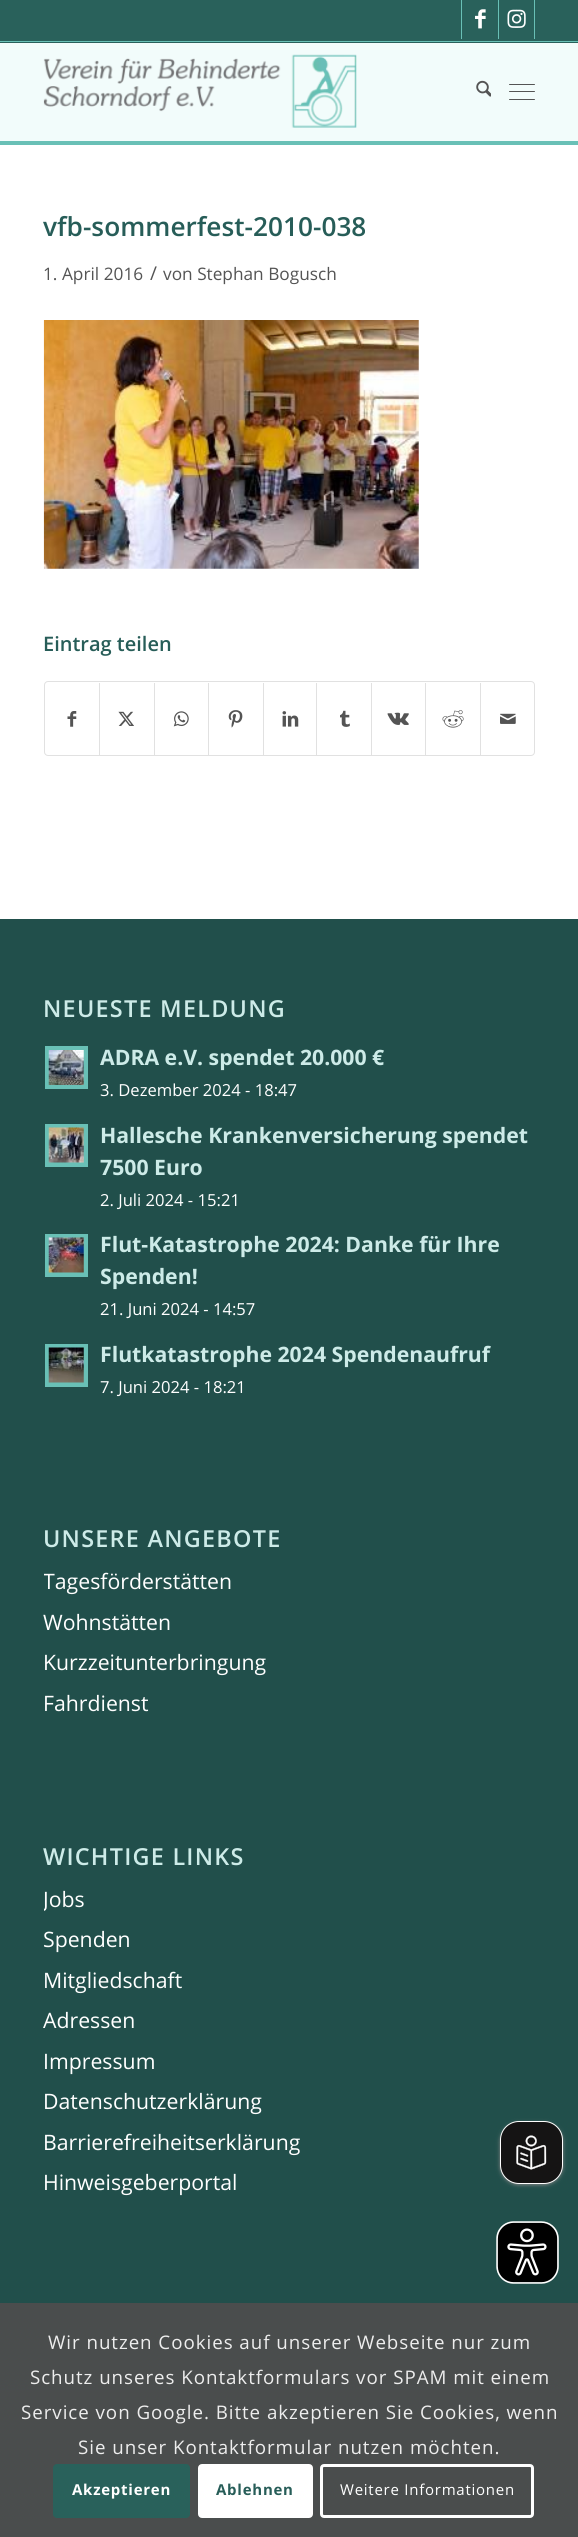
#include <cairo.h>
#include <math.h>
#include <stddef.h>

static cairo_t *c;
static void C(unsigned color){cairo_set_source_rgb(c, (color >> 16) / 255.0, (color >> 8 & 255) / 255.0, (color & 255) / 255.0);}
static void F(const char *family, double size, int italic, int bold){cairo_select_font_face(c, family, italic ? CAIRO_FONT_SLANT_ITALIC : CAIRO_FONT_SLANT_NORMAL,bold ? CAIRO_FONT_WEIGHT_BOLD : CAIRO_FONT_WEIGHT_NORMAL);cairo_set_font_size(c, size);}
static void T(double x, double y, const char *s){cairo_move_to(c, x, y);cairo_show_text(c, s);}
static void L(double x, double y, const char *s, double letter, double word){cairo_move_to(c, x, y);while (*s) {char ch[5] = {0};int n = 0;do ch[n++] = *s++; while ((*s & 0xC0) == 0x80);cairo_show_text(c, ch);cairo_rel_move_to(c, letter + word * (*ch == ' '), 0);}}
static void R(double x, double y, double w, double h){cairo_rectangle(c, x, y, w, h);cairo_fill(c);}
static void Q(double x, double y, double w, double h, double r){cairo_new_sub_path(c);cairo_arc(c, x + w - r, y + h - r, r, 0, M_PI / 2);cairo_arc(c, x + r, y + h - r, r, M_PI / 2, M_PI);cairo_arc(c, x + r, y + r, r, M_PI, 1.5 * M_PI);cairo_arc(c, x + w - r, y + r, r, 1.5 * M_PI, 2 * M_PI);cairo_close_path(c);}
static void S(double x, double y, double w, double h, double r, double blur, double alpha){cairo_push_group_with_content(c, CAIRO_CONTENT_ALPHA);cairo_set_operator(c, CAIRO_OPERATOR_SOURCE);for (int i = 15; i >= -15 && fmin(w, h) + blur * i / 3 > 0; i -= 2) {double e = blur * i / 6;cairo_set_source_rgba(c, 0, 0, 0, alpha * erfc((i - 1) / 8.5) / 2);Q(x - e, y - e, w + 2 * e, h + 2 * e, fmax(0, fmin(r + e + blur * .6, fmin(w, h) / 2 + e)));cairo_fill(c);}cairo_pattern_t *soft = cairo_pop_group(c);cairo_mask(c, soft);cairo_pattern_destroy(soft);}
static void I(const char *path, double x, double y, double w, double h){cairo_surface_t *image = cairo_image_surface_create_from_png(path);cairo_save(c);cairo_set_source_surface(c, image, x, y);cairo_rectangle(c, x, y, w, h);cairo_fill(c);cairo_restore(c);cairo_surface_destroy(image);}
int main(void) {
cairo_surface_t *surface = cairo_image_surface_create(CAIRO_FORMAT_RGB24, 578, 2537);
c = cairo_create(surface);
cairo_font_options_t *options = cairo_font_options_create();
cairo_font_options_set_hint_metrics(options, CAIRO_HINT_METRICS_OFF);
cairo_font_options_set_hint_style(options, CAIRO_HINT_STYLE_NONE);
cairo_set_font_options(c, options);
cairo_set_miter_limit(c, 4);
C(0xffffff);
cairo_paint(c);
C(0x29615b);
R(0,0,578,43);
C(0x69c0b6);
R(0,41,578,1);
R(498,0,1,39);
R(461,0,1,39);
I("1.png",475,9,11,20);
R(534,0,1,39);
I("2.png",507,9,19,19);
C(0xf2fcfb);
R(0,43,578,98);
C(0x69c0b6);
R(0,141,578,4);
I("3.png",43,54,314,74);
I("4.png",476,80,15,17);
C(0x545454);
Q(509,91,26,1,.5);
cairo_fill(c);
Q(509,84,26,1,.5);
cairo_fill(c);
Q(509,99,26,1,.5);
cairo_fill(c);
F("Open Sans SemiBold",26.25,0,0);
C(0x275d58);
T(43,236,"vfb-sommerfest-2010-038");
F("Open Sans",17.25,0,0);
C(0x545454);
T(43,280,"1. April 2016");
F("Open Sans",19,0,0);
T(150,280,"/");
F("Open Sans",17.25,0,0);
T(163,280,"von Stephan Bogusch");
I("5.png",43,320,376,249);
F("Open Sans SemiBold",20,0,0);
C(0x275d58);
T(43,651,"Eintrag teilen");
Q(44.5,681.5,490,74,3.5);
C(0xe1e1e1);
cairo_set_line_width(c,1);
cairo_stroke(c);
I("6.png",67,711,10,16);
R(99,683,1,72);
I("7.png",118,711,16,15);
R(154,683,1,72);
I("8.png",173,711,16,16);
R(208,683,1,72);
I("9.png",228,710,15,18);
R(263,683,1,72);
I("10.png",282,711,17,16);
R(316,683,1,72);
I("11.png",340,710,10,17);
R(371,683,1,72);
I("12.png",387,712,22,13);
R(425,683,1,72);
I("13.png",442,710,22,18);
R(480,683,1,72);
I("14.png",500,713,16,11);
C(0x214f4b);
R(0,919,578,1384);
F("Open Sans SemiBold",23.4,0,0);
C(0xcdebe8);
L(43,1017,"NEUESTE MELDUNG",1.25,0);
C(0x69c0b6);
R(45,1046,43,43);
I("15.png",48,1050,36,35);
F("Open Sans",21.25,0,1);
C(0xcdebe8);
T(100,1065,"ADRA e.V. spendet 20.000 €");
F("Open Sans",16.6,0,0);
C(0xffffff);
T(100,1096,"3. Dezember 2024 - 18:47");
C(0x69c0b6);
R(45,1124,43,43);
I("16.png",48,1127,36,36);
F("Open Sans",21.25,0,1);
C(0xcdebe8);
T(100,1143,"Hallesche Krankenversicherung spendet");
T(100,1175,"7500 Euro");
F("Open Sans",16.6,0,0);
C(0xffffff);
T(100,1206,"2. Juli 2024 - 15:21");
C(0x69c0b6);
R(45,1234,43,43);
I("17.png",48,1237,36,36);
F("Open Sans",21.25,0,1);
C(0xcdebe8);
T(100,1252,"Flut-Katastrophe 2024: Danke für Ihre");
T(100,1284,"Spenden!");
F("Open Sans",16.6,0,0);
C(0xffffff);
T(100,1315,"21. Juni 2024 - 14:57");
C(0x69c0b6);
R(45,1344,43,43);
I("18.png",48,1347,36,36);
F("Open Sans",21.25,0,1);
C(0xcdebe8);
T(100,1362,"Flutkatastrophe 2024 Spendenaufruf");
F("Open Sans",16.6,0,0);
C(0xffffff);
T(100,1393,"7. Juni 2024 - 18:21");
F("Open Sans SemiBold",23.4,0,0);
C(0xcdebe8);
L(43,1547,"UNSERE ANGEBOTE",1.25,0);
cairo_save(c);
cairo_rectangle(c,44,1506,491,218);
cairo_clip(c);
F("Open Sans",21.25,0,0);
C(0xffffff);
T(43,1589,"Tagesförderstätten");
cairo_restore(c);
F("Open Sans",21.25,0,0);
C(0xffffff);
T(43,1630,"Wohnstätten");
T(43,1670,"Kurzzeitunterbringung");
T(43,1711,"Fahrdienst");
F("Open Sans SemiBold",23.4,0,0);
C(0xcdebe8);
L(43,1865,"WICHTIGE LINKS",1.25,0);
cairo_save(c);
cairo_rectangle(c,44,1824,491,380);
cairo_clip(c);
F("Open Sans",21.25,0,0);
C(0xffffff);
T(43,1907,"Jobs");
cairo_restore(c);
F("Open Sans",21.25,0,0);
C(0xffffff);
T(43,1947,"Spenden");
T(43,1988,"Mitgliedschaft");
T(43,2028,"Adressen");
T(43,2069,"Impressum");
T(43,2109,"Datenschutzerklärung");
T(43,2150,"Barrierefreiheitserklärung");
T(43,2190,"Hinweisgeberportal");
C(0x848484);
S(500,2123,63,62,19,2,1);
C(0x151414);
Q(500.5,2121.5,62,62,18.5);
cairo_fill_preserve(c);
C(0xffffff);
cairo_stroke(c);
I("19.png",516,2135,31,35);
I("20.png",496,2221,63,63);
C(0x4a4d4d);
R(0,2303,578,234);
F("Open Sans",18.75,0,0);
C(0xededed);
L(48,2349,"Wir nutzen Cookies auf unserer Webseite nur zum",.95,0);
L(30,2384,"Schutz unseres Kontaktformulars vor SPAM mit einem",.95,0);
L(21,2419,"Service von Google. Bitte akzeptieren Sie Cookies, wenn",.95,0);
L(78,2454,"Sie unser Kontaktformular nutzen möchten.",.95,0);
C(0x29615b);
Q(53,2464,137,54,4);
cairo_fill(c);
F("Open Sans",15,0,1);
C(0xffffff);
L(72,2495,"Akzeptieren",.75,0);
Q(199.5,2465.5,112,51,2.5);
cairo_fill_preserve(c);
cairo_set_line_width(c,3);
cairo_stroke(c);
C(0x275d58);
L(216,2495,"Ablehnen",.75,0);
Q(321.5,2465.5,211,51,2.5);
C(0xffffff);
cairo_stroke(c);
F("Open Sans",15,0,0);
L(340,2495,"Weitere Informationen",.75,0);
cairo_surface_write_to_png(surface, "o.png");
cairo_font_options_destroy(options);
cairo_destroy(c);
cairo_surface_destroy(surface);
return 0;
}
